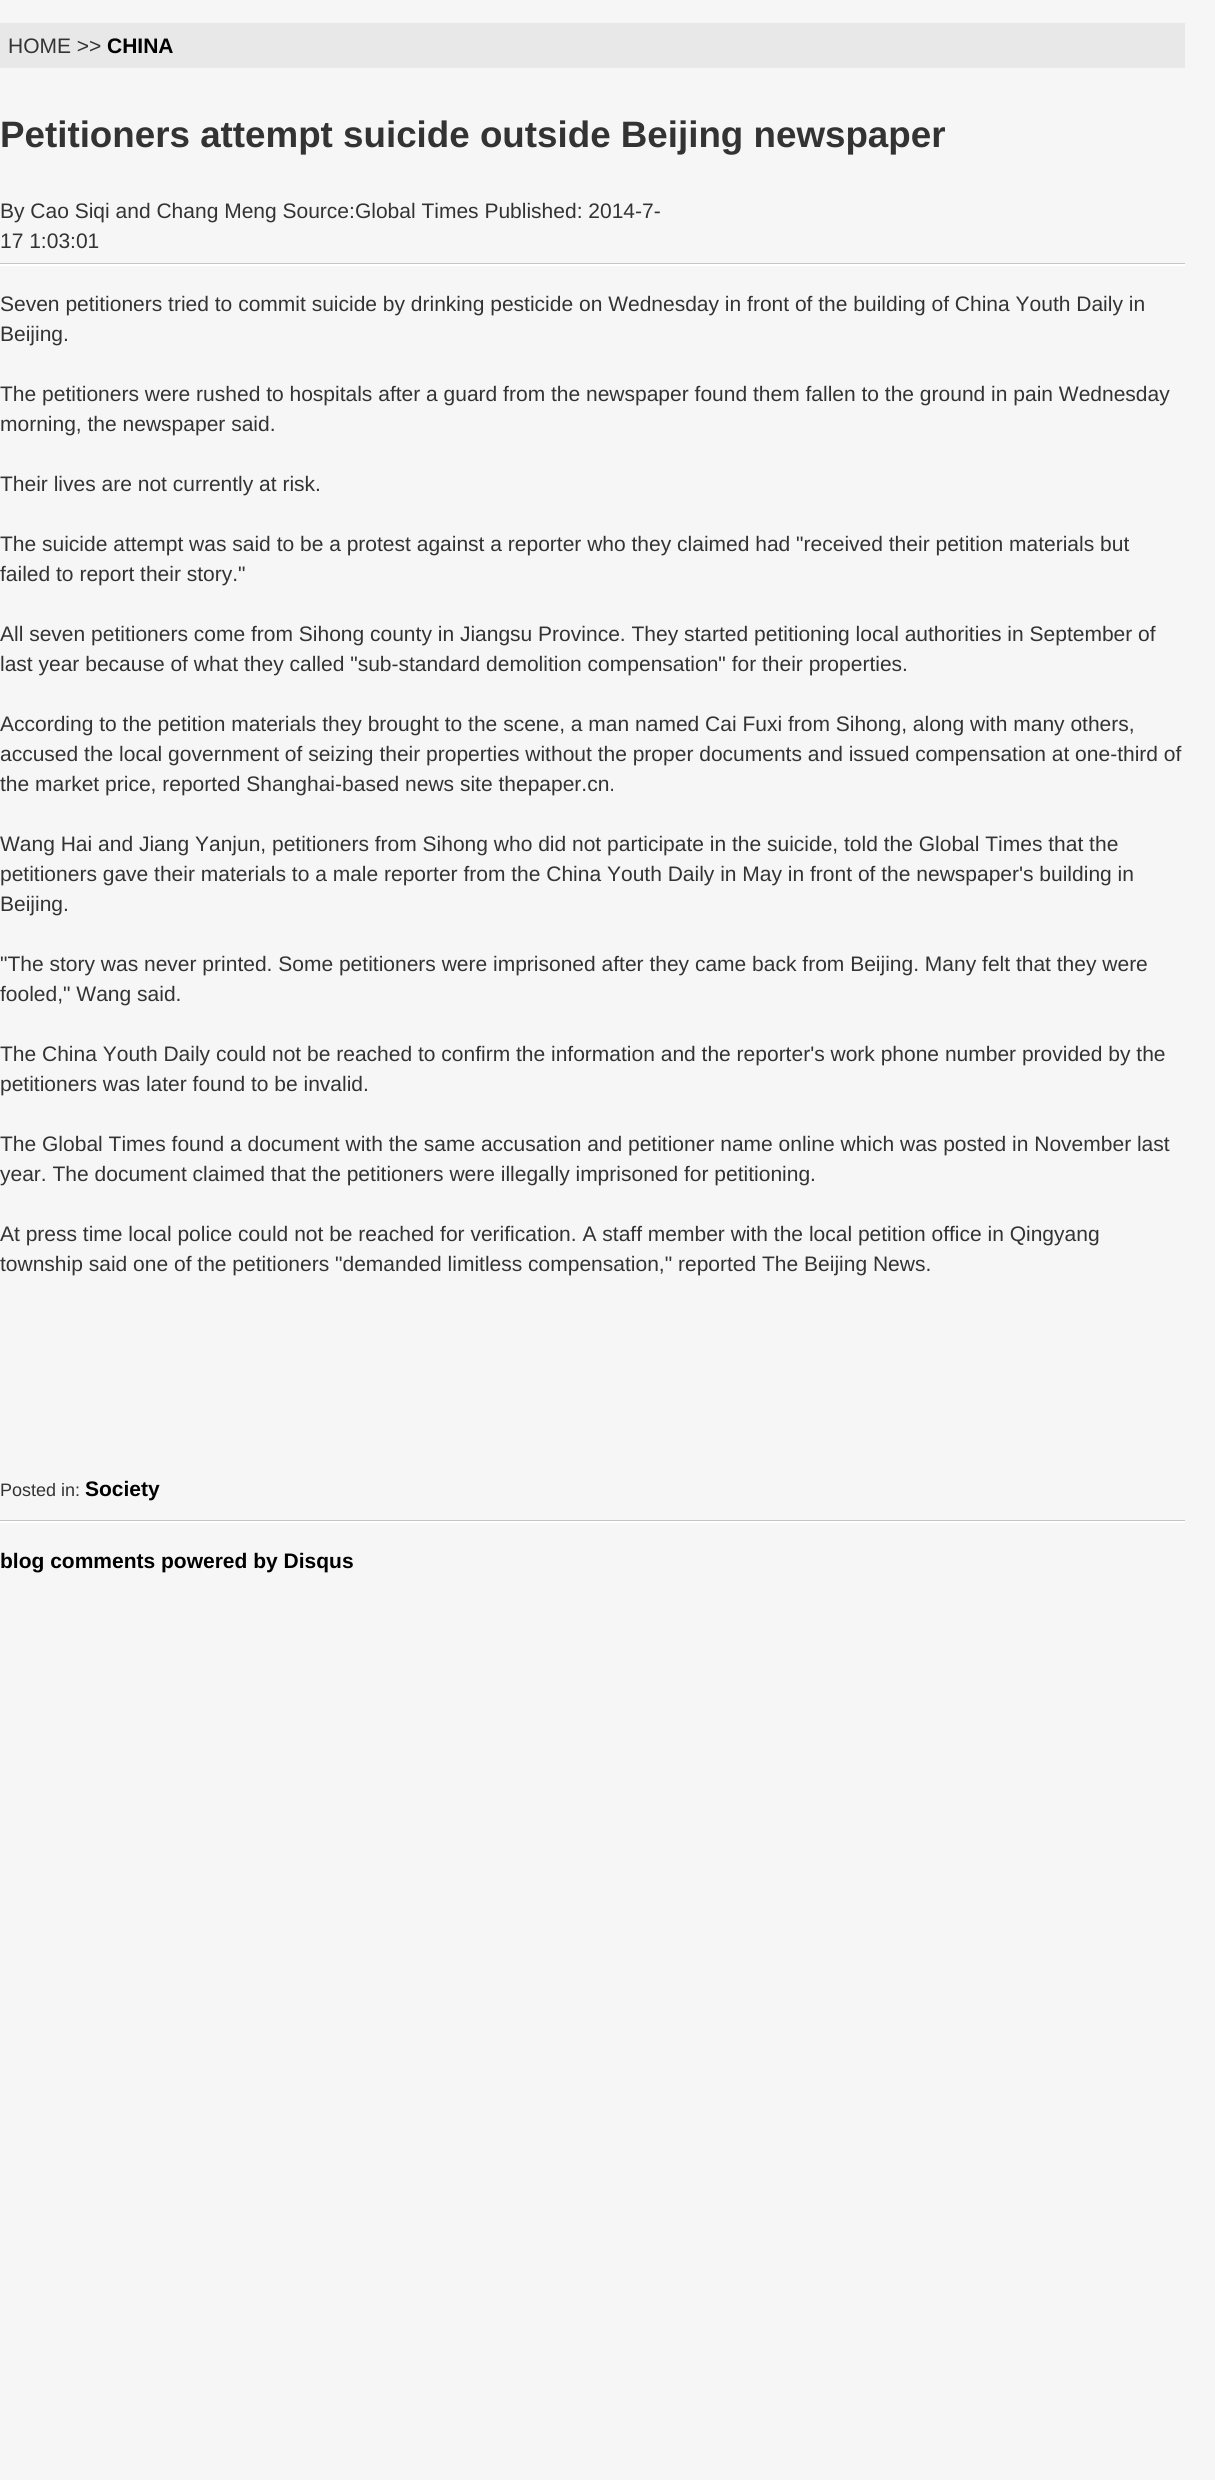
#include <cairo.h>
#include <math.h>
#include <stddef.h>

static cairo_t *c;
static void C(unsigned color){cairo_set_source_rgb(c, (color >> 16) / 255.0, (color >> 8 & 255) / 255.0, (color & 255) / 255.0);}
static void F(const char *family, double size, int italic, int bold){cairo_select_font_face(c, family, italic ? CAIRO_FONT_SLANT_ITALIC : CAIRO_FONT_SLANT_NORMAL,bold ? CAIRO_FONT_WEIGHT_BOLD : CAIRO_FONT_WEIGHT_NORMAL);cairo_set_font_size(c, size);}
static void T(double x, double y, const char *s){cairo_move_to(c, x, y);cairo_show_text(c, s);}
static void R(double x, double y, double w, double h){cairo_rectangle(c, x, y, w, h);cairo_fill(c);}
int main(void) {
cairo_surface_t *surface = cairo_image_surface_create(CAIRO_FORMAT_RGB24, 1215, 2480);
c = cairo_create(surface);
cairo_font_options_t *options = cairo_font_options_create();
cairo_font_options_set_hint_metrics(options, CAIRO_HINT_METRICS_OFF);
cairo_font_options_set_hint_style(options, CAIRO_HINT_STYLE_NONE);
cairo_set_font_options(c, options);
cairo_set_miter_limit(c, 4);
C(0xf6f6f6);
cairo_paint(c);
C(0xe8e8e8);
R(0,23,1185,45);
F("Liberation Sans",21,0,0);
C(0x333333);
T(8,53,"HOME >>");
F("Liberation Sans",21,0,1);
C(0x000000);
T(107,53,"CHINA");
F("Liberation Sans",36.75,0,1);
C(0x333333);
T(0,147,"Petitioners attempt suicide outside Beijing newspaper");
F("Liberation Sans",21,0,0);
T(0,218,"By Cao Siqi and Chang Meng Source:Global Times Published: 2014-7-");
T(0,248,"17 1:03:01");
C(0xc5c5c5);
R(0,263,1185,1);
C(0xffffff);
R(0,264,1185,2);
C(0x333333);
T(0,311,"Seven petitioners tried to commit suicide by drinking pesticide on Wednesday in front of the building of China Youth Daily in");
T(0,341,"Beijing.");
T(0,401,"The petitioners were rushed to hospitals after a guard from the newspaper found them fallen to the ground in pain Wednesday");
T(0,431,"morning, the newspaper said.");
T(0,491,"Their lives are not currently at risk.");
T(0,551,"The suicide attempt was said to be a protest against a reporter who they claimed had \"received their petition materials but");
T(0,581,"failed to report their story.\"");
T(0,641,"All seven petitioners come from Sihong county in Jiangsu Province. They started petitioning local authorities in September of");
T(0,671,"last year because of what they called \"sub-standard demolition compensation\" for their properties.");
T(0,731,"According to the petition materials they brought to the scene, a man named Cai Fuxi from Sihong, along with many others,");
T(0,761,"accused the local government of seizing their properties without the proper documents and issued compensation at one-third of");
T(0,791,"the market price, reported Shanghai-based news site thepaper.cn.");
T(0,851,"Wang Hai and Jiang Yanjun, petitioners from Sihong who did not participate in the suicide, told the Global Times that the");
T(0,881,"petitioners gave their materials to a male reporter from the China Youth Daily in May in front of the newspaper's building in");
T(0,911,"Beijing.");
T(0,971,"\"The story was never printed. Some petitioners were imprisoned after they came back from Beijing. Many felt that they were");
T(0,1001,"fooled,\" Wang said.");
T(0,1061,"The China Youth Daily could not be reached to confirm the information and the reporter's work phone number provided by the");
T(0,1091,"petitioners was later found to be invalid.");
T(0,1151,"The Global Times found a document with the same accusation and petitioner name online which was posted in November last");
T(0,1181,"year. The document claimed that the petitioners were illegally imprisoned for petitioning.");
T(0,1241,"At press time local police could not be reached for verification. A staff member with the local petition office in Qingyang");
T(0,1271,"township said one of the petitioners \"demanded limitless compensation,\" reported The Beijing News.");
F("Liberation Sans",18,0,0);
T(0,1496,"Posted in:");
F("Liberation Sans",21,0,1);
C(0x000000);
T(85,1496,"Society");
C(0xc5c5c5);
R(0,1520,1185,1);
C(0xffffff);
R(0,1521,1185,2);
C(0x000000);
T(0,1568,"blog comments powered by Disqus");
cairo_surface_write_to_png(surface, "o.png");
cairo_font_options_destroy(options);
cairo_destroy(c);
cairo_surface_destroy(surface);
return 0;
}
